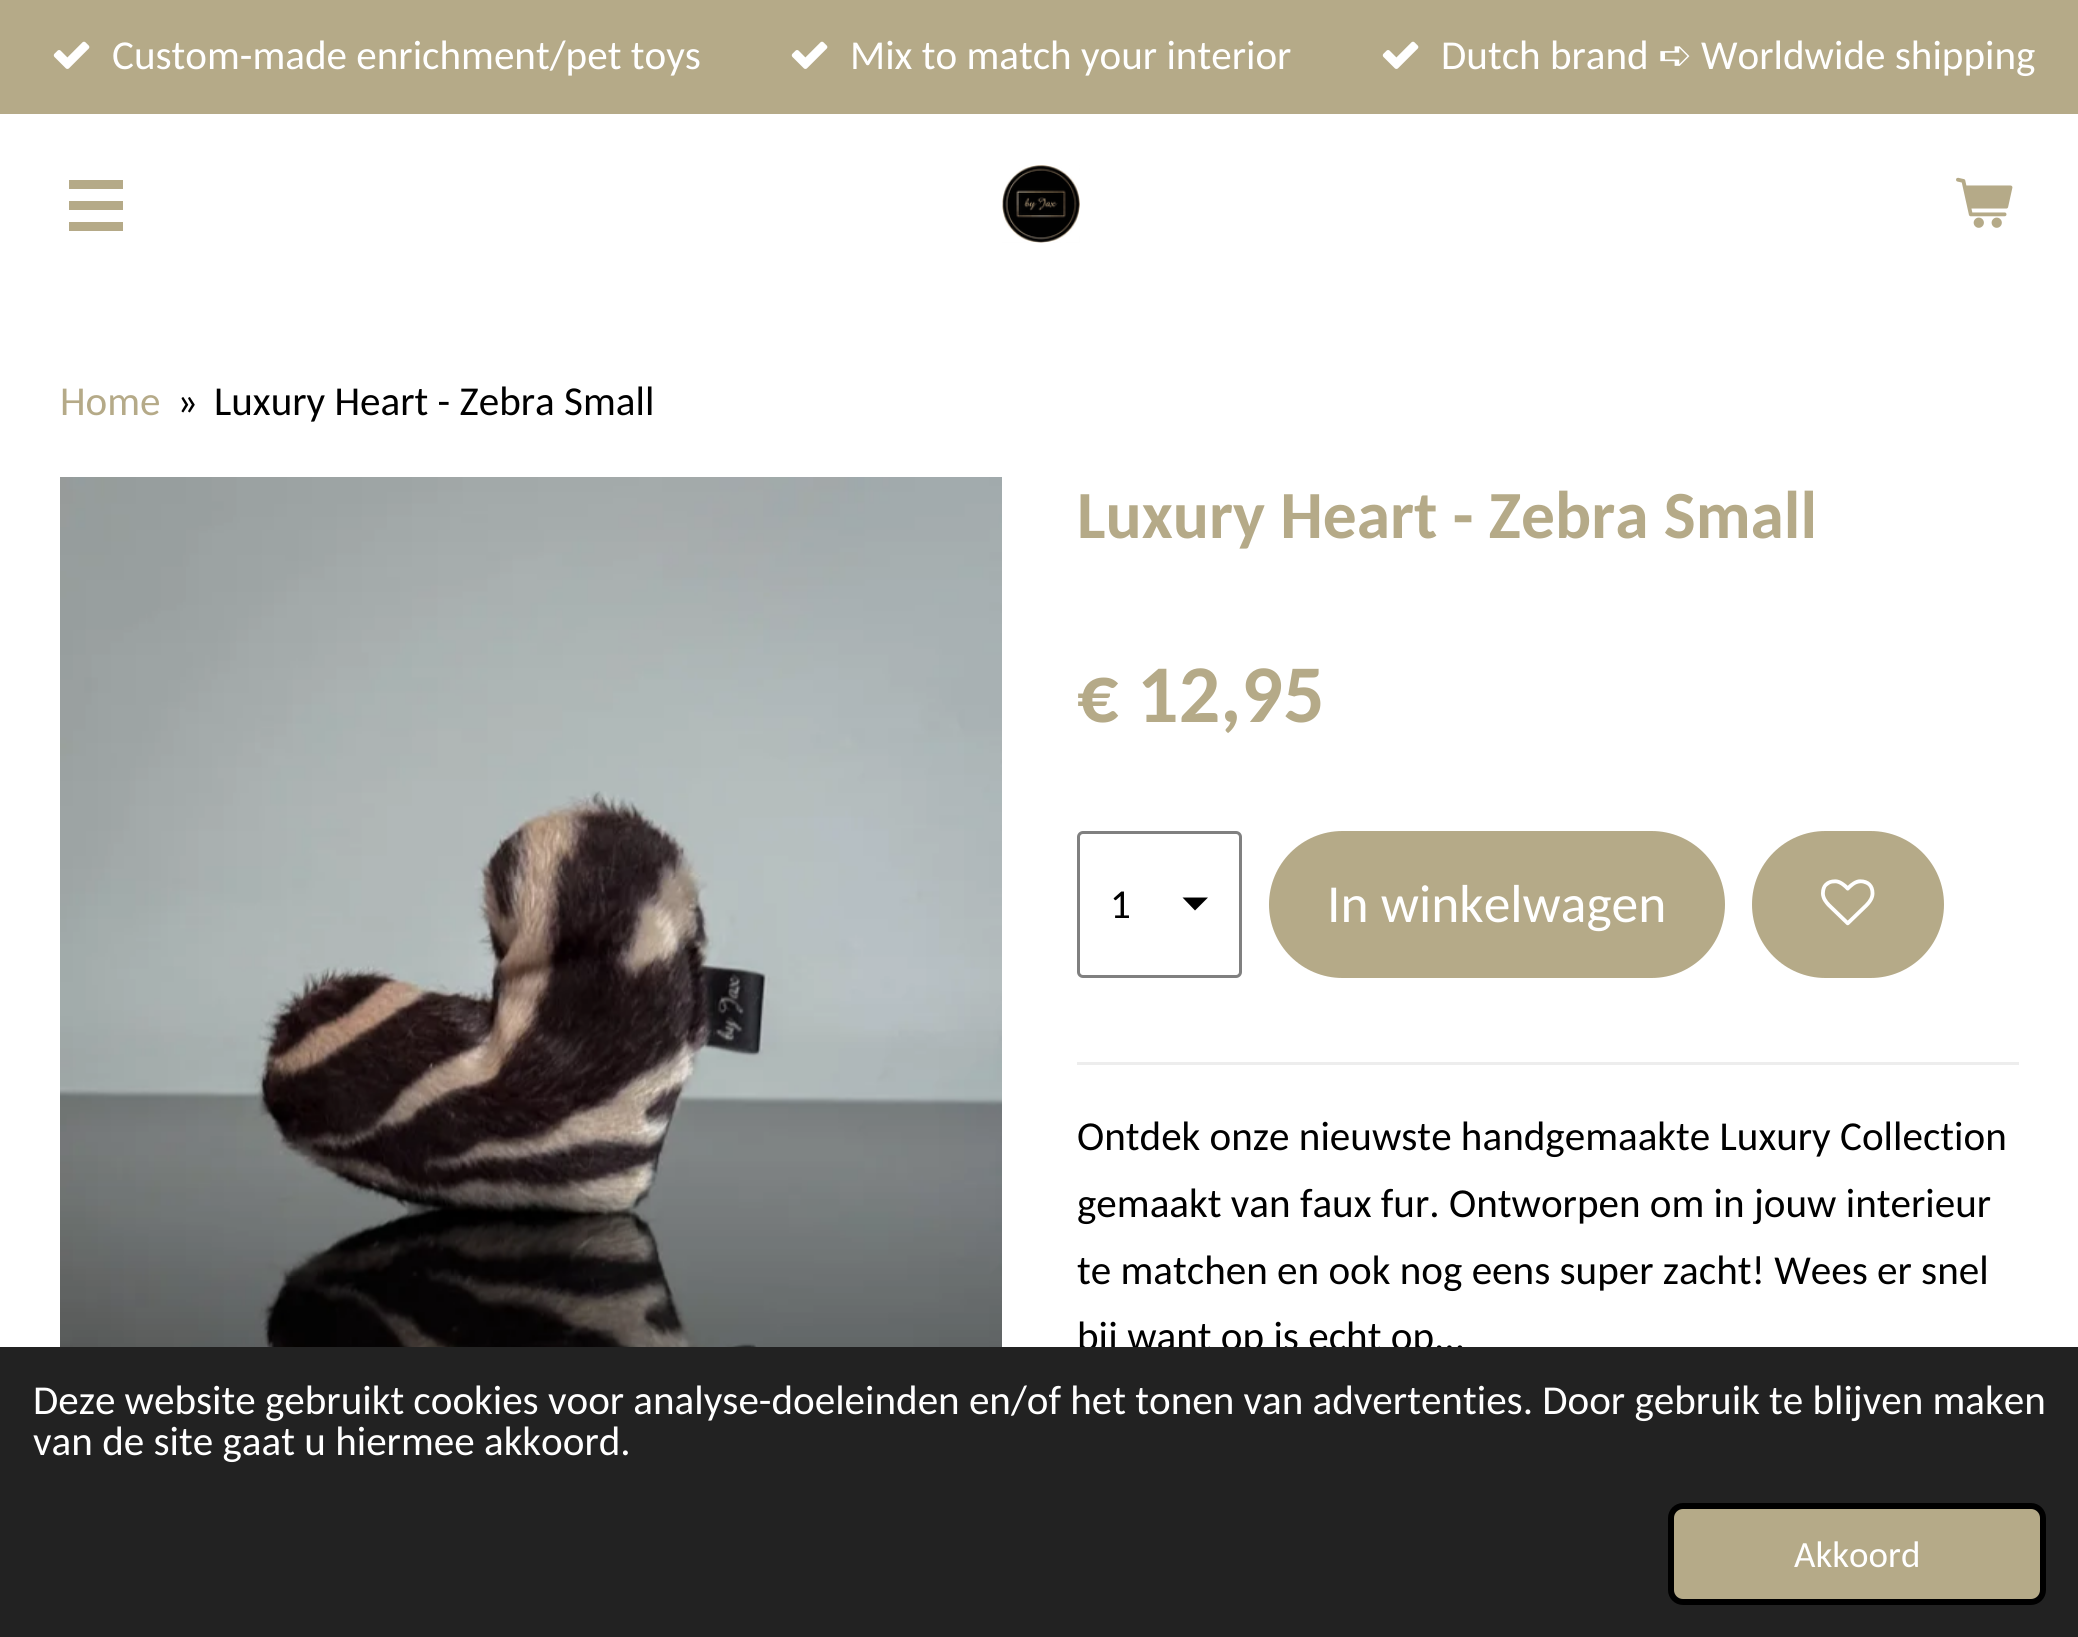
#include <cairo.h>
#include <math.h>
#include <stddef.h>

static cairo_t *c;
static void C(unsigned color){cairo_set_source_rgb(c, (color >> 16) / 255.0, (color >> 8 & 255) / 255.0, (color & 255) / 255.0);}
static void F(const char *family, double size, int italic, int bold){cairo_select_font_face(c, family, italic ? CAIRO_FONT_SLANT_ITALIC : CAIRO_FONT_SLANT_NORMAL,bold ? CAIRO_FONT_WEIGHT_BOLD : CAIRO_FONT_WEIGHT_NORMAL);cairo_set_font_size(c, size);}
static void T(double x, double y, const char *s){cairo_move_to(c, x, y);cairo_show_text(c, s);}
static void L(double x, double y, const char *s, double letter, double word){cairo_move_to(c, x, y);while (*s) {char ch[5] = {0};int n = 0;do ch[n++] = *s++; while ((*s & 0xC0) == 0x80);cairo_show_text(c, ch);cairo_rel_move_to(c, letter + word * (*ch == ' '), 0);}}
static void R(double x, double y, double w, double h){cairo_rectangle(c, x, y, w, h);cairo_fill(c);}
static void Q(double x, double y, double w, double h, double r){cairo_new_sub_path(c);cairo_arc(c, x + w - r, y + h - r, r, 0, M_PI / 2);cairo_arc(c, x + r, y + h - r, r, M_PI / 2, M_PI);cairo_arc(c, x + r, y + r, r, M_PI, 1.5 * M_PI);cairo_arc(c, x + w - r, y + r, r, 1.5 * M_PI, 2 * M_PI);cairo_close_path(c);}
static void I(const char *path, double x, double y, double w, double h){cairo_surface_t *image = cairo_image_surface_create_from_png(path);cairo_save(c);cairo_set_source_surface(c, image, x, y);cairo_rectangle(c, x, y, w, h);cairo_fill(c);cairo_restore(c);cairo_surface_destroy(image);}
int main(void) {
cairo_surface_t *surface = cairo_image_surface_create(CAIRO_FORMAT_RGB24, 2078, 1637);
c = cairo_create(surface);
cairo_font_options_t *options = cairo_font_options_create();
cairo_font_options_set_hint_metrics(options, CAIRO_HINT_METRICS_OFF);
cairo_font_options_set_hint_style(options, CAIRO_HINT_STYLE_NONE);
cairo_set_font_options(c, options);
cairo_set_miter_limit(c, 4);
C(0xffffff);
cairo_paint(c);
C(0xb5aa88);
R(0,0,2078,114);
I("1.png",53,41,37,28);
F("Carlito",41.1,0,0);
C(0xffffff);
T(112,69,"Custom-made enrichment/pet toys");
I("1.png",791,41,37,28);
T(850,69,"Mix to match your interior");
I("1.png",1382,41,37,28);
T(1441,69,"Dutch brand");
F("DejaVu Sans",41.1,0,0);
T(1658,69,"➪");
F("Carlito",41.1,0,0);
T(1701,69,"Worldwide shipping");
C(0xb5aa88);
R(69,201,54,9);
R(69,180,54,9);
R(69,222,54,9);
I("2.png",1002,165,78,78);
I("3.png",1956,177,57,51);
T(60,415,"Home");
C(0x000000);
T(177,415,"»");
T(214,415,"Luxury Heart - Zebra Small");
I("4.png",60,477,942,870);
F("Carlito",67.5,0,1);
C(0xb5aa88);
T(1077,538,"Luxury Heart - Zebra Small");
F("Carlito",82,0,1);
T(1077,722,"€ 12,95");
C(0x000000);
cairo_new_path(c);
cairo_move_to(c,1195,910.5);
cairo_line_to(c,1182.5,897.5);
cairo_line_to(c,1208,897.5);
cairo_close_path(c);
cairo_fill(c);
Q(1078.5,832.5,162,144,4.5);
C(0x808080);
cairo_set_line_width(c,3);
cairo_stroke(c);
F("Carlito",41.1,0,0);
C(0x000000);
T(1110,918,"1");
C(0xb5aa88);
Q(1269,831,456,147,73.5);
cairo_fill(c);
F("Carlito",53.5,0,0);
C(0xffffff);
T(1327,922,"In winkelwagen");
C(0xb5aa88);
Q(1752,831,192,147,73.5);
cairo_fill(c);
I("5.png",1821,879,54,47);
C(0xededed);
R(1077,1062,942,3);
F("Carlito",41.1,0,0);
C(0x000000);
T(1077,1150,"Ontdek onze nieuwste handgemaakte Luxury Collection");
T(1077,1217,"gemaakt van faux fur. Ontworpen om in jouw interieur");
T(1077,1284,"te matchen en ook nog eens super zacht! Wees er snel");
T(1077,1350,"bij want op is echt op...");
C(0x222222);
R(0,1347,2078,290);
C(0xffffff);
L(33,1414,"Deze website gebruikt cookies voor analyse-doeleinden en/of het tonen van advertenties. Door gebruik te blijven maken",0,-.1);
T(33,1455,"van de site gaat u hiermee akkoord.");
C(0xb5aa88);
Q(1671,1506,372,96,12);
cairo_fill_preserve(c);
C(0x000000);
cairo_set_line_width(c,6);
cairo_stroke(c);
F("Carlito",37,0,0);
C(0xffffff);
T(1794,1567,"Akkoord");
cairo_surface_write_to_png(surface, "o.png");
cairo_font_options_destroy(options);
cairo_destroy(c);
cairo_surface_destroy(surface);
return 0;
}
